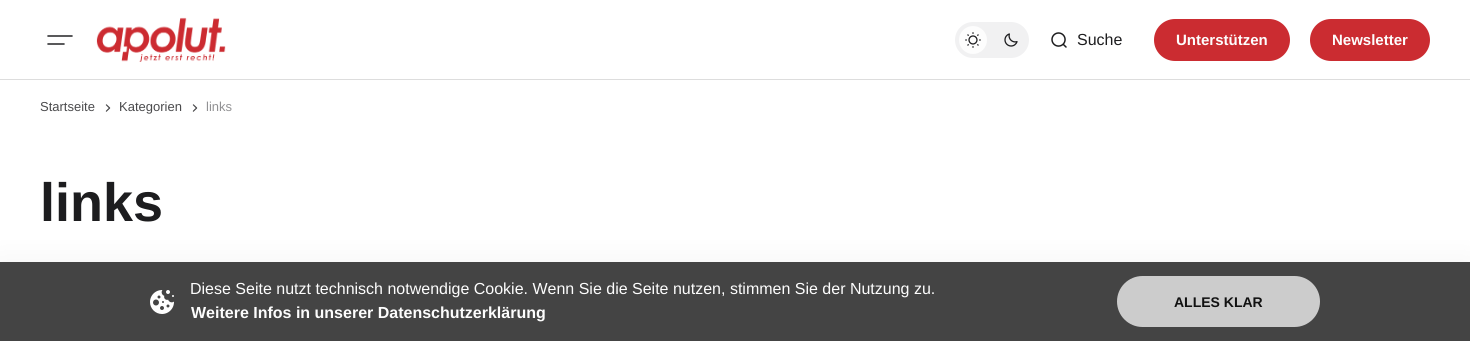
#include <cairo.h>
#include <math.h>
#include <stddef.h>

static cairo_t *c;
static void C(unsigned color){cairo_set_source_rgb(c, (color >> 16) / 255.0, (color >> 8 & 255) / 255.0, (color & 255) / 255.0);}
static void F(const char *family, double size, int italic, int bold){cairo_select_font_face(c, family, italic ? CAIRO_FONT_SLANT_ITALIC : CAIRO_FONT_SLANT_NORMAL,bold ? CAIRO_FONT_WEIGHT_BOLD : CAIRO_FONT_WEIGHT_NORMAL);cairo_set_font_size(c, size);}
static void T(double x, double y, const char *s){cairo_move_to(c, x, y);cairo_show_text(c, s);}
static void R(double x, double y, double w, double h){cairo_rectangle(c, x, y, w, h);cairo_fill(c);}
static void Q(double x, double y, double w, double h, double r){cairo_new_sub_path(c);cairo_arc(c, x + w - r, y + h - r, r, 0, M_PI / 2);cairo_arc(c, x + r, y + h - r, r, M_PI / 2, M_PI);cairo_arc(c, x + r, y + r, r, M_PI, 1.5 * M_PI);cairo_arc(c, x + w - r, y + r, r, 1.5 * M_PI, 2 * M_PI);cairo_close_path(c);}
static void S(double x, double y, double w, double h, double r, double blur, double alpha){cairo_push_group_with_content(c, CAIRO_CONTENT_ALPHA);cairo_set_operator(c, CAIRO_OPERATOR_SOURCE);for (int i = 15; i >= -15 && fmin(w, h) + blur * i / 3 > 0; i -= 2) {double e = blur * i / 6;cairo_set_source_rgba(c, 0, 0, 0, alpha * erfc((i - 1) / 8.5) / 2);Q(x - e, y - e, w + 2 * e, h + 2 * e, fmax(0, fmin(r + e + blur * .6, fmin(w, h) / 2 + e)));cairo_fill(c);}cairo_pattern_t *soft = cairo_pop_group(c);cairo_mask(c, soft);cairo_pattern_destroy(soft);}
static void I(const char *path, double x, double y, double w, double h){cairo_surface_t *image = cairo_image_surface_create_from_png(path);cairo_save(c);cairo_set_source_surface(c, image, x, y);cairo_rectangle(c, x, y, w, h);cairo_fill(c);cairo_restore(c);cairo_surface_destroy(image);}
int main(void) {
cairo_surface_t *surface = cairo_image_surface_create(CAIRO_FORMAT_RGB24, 1470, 341);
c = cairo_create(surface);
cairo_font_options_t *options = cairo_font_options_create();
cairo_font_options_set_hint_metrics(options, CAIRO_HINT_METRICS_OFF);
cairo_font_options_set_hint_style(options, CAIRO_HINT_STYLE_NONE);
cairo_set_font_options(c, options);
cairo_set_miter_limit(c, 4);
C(0xffffff);
cairo_paint(c);
C(0xdddddd);
R(0,79,1470,1);
cairo_new_path(c);
cairo_move_to(c,48,36);
cairo_line_to(c,72,36);
cairo_move_to(c,48,44);
cairo_line_to(c,64,44);
C(0x1d1d1f);
cairo_set_line_width(c,1.5);
cairo_set_line_cap(c,CAIRO_LINE_CAP_ROUND);
cairo_stroke(c);
I("1.png",96,17,130,45);
C(0xf1f1f2);
Q(955,22,74,36,18);
cairo_fill(c);
C(0xfdfdfd);
cairo_arc(c,973,40,14,0,2 * M_PI);
cairo_fill(c);
I("2.png",965,32,16,16);
I("3.png",1004,33,14,14);
I("4.png",1051,32,16,16);
F("Liberation Sans",16,0,0);
C(0x1d1d1f);
T(1077,45,"Suche");
C(0xcb2c31);
Q(1154,19,136,42,21);
cairo_fill(c);
F("Liberation Sans",15,0,1);
C(0xfdfdfd);
T(1176,45,"Unterstützen");
C(0xcb2c31);
Q(1310,19,120,42,21);
cairo_fill(c);
C(0xfdfdfd);
T(1332,45,"Newsletter");
F("Liberation Sans",13,0,0);
C(0x4a4a4c);
T(40,111,"Startseite");
I("5.png",105,104,6,8);
T(119,111,"Kategorien");
I("5.png",192,104,6,8);
C(0x929294);
T(206,111,"links");
F("Liberation Sans",54,0,1);
C(0x1d1d1f);
T(40,221,"links");
C(0x000000);
S(0,262,1470,79,0,15,.05);
C(0x444444);
R(0,262,1470,79);
I("6.png",150,290,24,24);
F("Liberation Sans",16,0,0);
C(0xfdfdfd);
T(190,294,"Diese Seite nutzt technisch notwendige Cookie. Wenn Sie die Seite nutzen, stimmen Sie der Nutzung zu.");
F("Liberation Sans",16,0,1);
T(191,318,"Weitere Infos in unserer Datenschutzerklärung");
C(0xcccccc);
Q(1117,276,203,51,25.5);
cairo_fill(c);
F("Liberation Sans",14,0,1);
C(0x111111);
T(1174,307,"ALLES KLAR");
cairo_surface_write_to_png(surface, "o.png");
cairo_font_options_destroy(options);
cairo_destroy(c);
cairo_surface_destroy(surface);
return 0;
}
